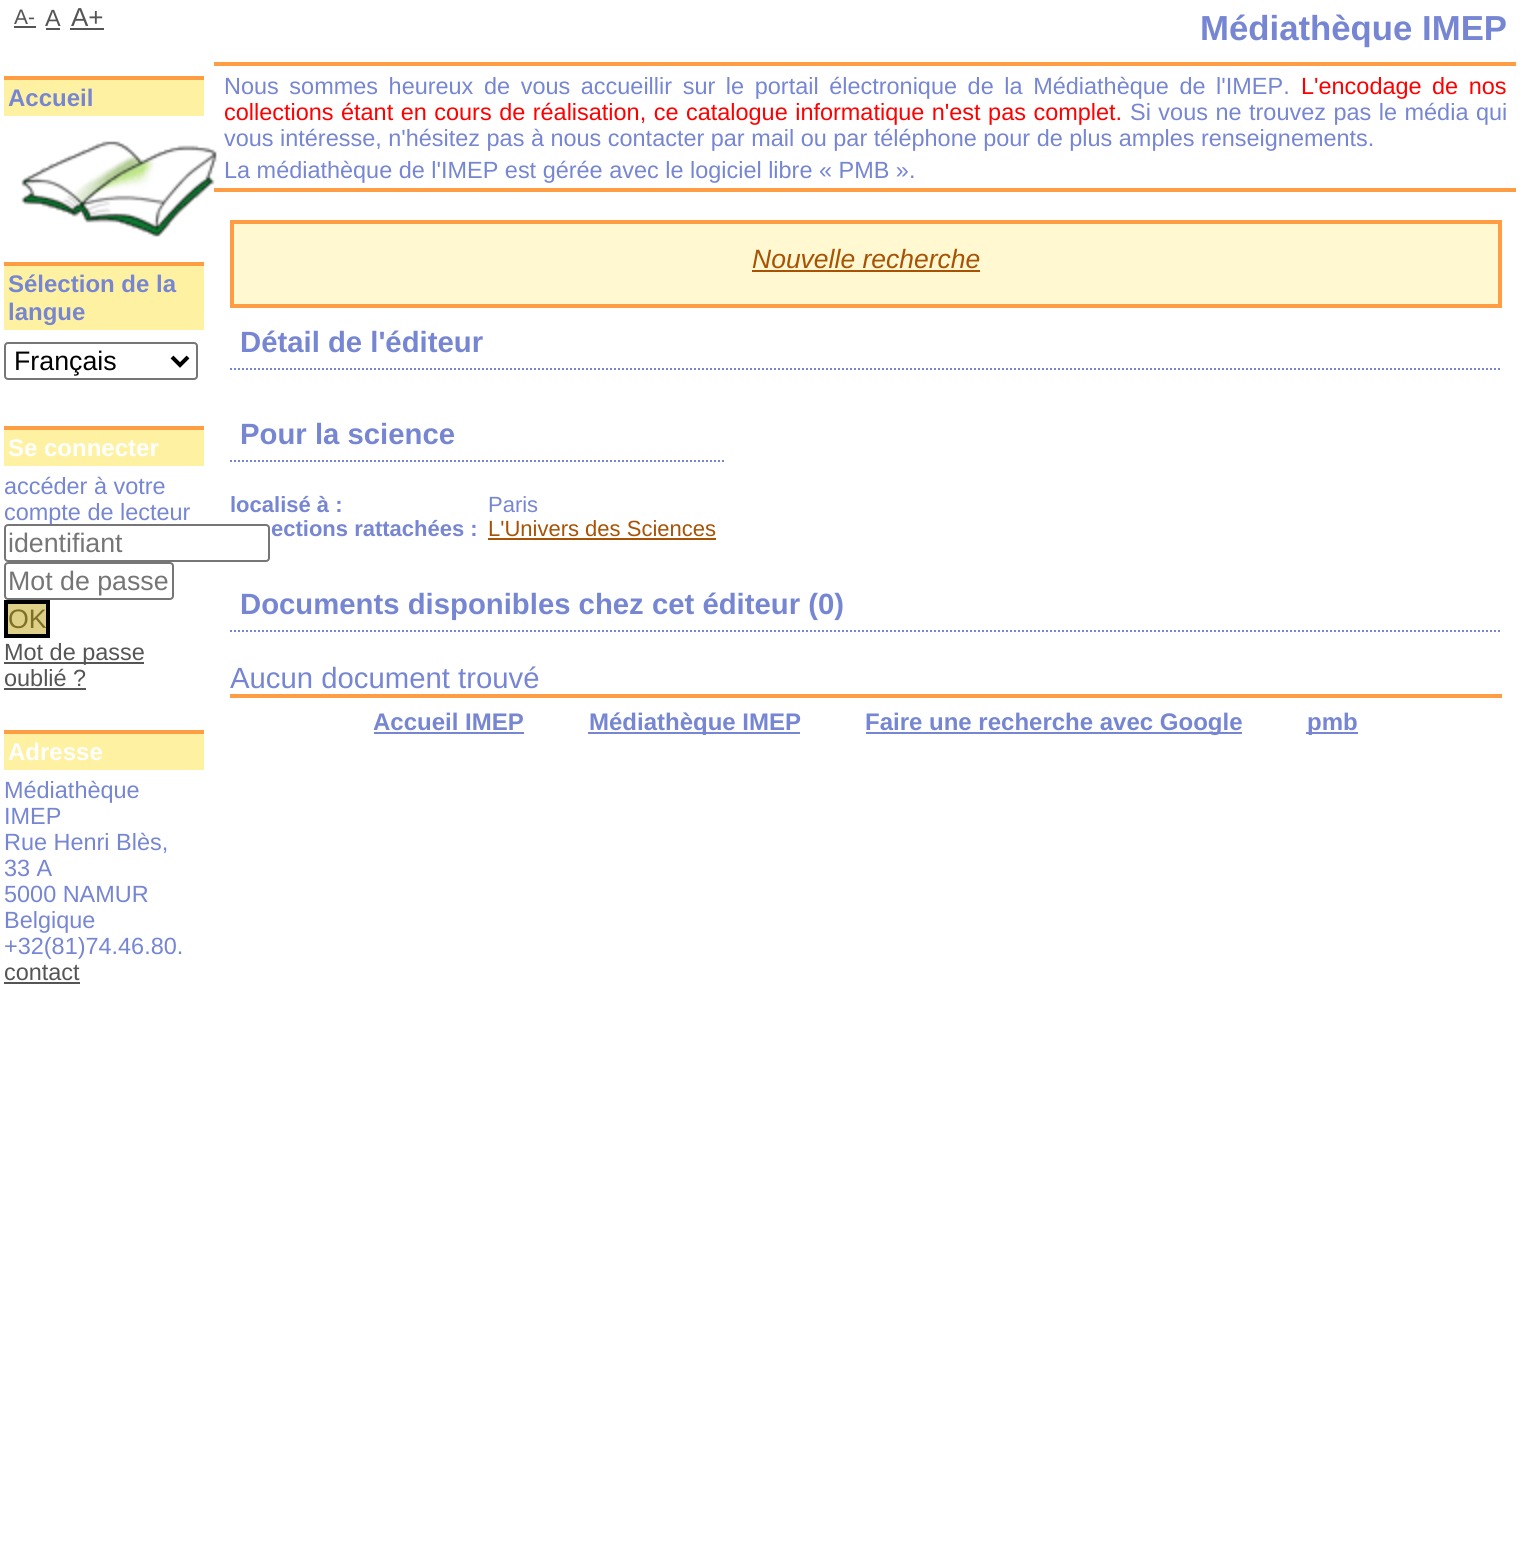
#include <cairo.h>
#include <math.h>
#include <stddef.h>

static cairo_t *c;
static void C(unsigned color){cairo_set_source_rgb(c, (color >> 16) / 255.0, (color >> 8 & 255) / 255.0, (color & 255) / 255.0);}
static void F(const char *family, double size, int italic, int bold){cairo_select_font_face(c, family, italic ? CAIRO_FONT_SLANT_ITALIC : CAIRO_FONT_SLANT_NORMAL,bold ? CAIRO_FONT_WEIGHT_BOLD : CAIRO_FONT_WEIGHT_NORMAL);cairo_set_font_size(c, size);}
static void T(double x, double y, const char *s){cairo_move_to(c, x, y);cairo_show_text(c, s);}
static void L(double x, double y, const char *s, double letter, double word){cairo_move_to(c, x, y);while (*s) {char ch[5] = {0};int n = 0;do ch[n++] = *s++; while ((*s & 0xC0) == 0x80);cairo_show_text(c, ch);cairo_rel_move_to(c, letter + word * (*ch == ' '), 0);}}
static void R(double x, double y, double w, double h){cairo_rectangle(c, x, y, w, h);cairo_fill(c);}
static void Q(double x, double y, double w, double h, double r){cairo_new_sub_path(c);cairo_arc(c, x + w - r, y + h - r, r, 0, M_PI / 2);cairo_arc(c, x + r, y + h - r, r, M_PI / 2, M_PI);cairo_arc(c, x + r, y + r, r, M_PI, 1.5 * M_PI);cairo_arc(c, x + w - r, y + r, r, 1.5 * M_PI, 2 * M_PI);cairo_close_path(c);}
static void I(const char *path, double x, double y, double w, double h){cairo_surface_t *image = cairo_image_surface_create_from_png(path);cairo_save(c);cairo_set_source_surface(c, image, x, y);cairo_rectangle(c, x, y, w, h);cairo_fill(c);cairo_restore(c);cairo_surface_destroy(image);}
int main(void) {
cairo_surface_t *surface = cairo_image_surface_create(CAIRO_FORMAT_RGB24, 1532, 1548);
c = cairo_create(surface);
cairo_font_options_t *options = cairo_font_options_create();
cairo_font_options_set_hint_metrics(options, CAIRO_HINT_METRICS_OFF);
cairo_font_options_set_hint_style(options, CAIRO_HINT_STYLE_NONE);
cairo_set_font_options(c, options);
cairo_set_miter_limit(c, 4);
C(0xffffff);
cairo_paint(c);
F("Liberation Sans",21,0,0);
C(0x555555);
T(14,24,"A-");
R(14,26,22,2);
F("Liberation Sans",23.45,0,0);
T(45,26,"A");
R(46,28,14,2);
F("Liberation Sans",26,0,0);
T(71,26,"A+");
R(70,28,34,2);
C(0xfff1a2);
R(4,80,200,36);
C(0xfe9d43);
R(4,76,200,4);
F("Liberation Sans",24,0,1);
C(0x7686d2);
T(8,106,"Accueil");
C(0xfe9d43);
R(214,188,1302,4);
I("1.png",21,141,196,96);
C(0xfff1a2);
R(4,266,200,64);
C(0xfe9d43);
R(4,262,200,4);
C(0x7686d2);
T(8,292,"Sélection de la");
T(8,320,"langue");
Q(5,343,192,36,3);
C(0x767676);
cairo_stroke(c);
cairo_new_path(c);
cairo_move_to(c,172,357);
cairo_line_to(c,180,365);
cairo_line_to(c,188,357);
C(0x000000);
cairo_set_line_width(c,4);
cairo_stroke(c);
F("Liberation Sans",26.75,0,0);
T(14,370,"Français");
C(0xfff1a2);
R(4,430,200,36);
C(0xfe9d43);
R(4,426,200,4);
F("Liberation Sans",24,0,1);
C(0xffffff);
T(8,456,"Se connecter");
F("Liberation Sans",23.45,0,0);
C(0x7686d2);
T(4,494,"accéder à votre");
T(4,520,"compte de lecteur");
C(0xffffff);
Q(5,525,264,36,3);
cairo_fill_preserve(c);
C(0x767676);
cairo_set_line_width(c,2);
cairo_stroke(c);
F("Liberation Sans",26.75,0,0);
C(0x757575);
T(8,552,"identifiant");
Q(5,563,168,36,3);
C(0x767676);
cairo_stroke(c);
C(0x757575);
T(8,590,"Mot de passe");
C(0xdfd087);
cairo_rectangle(c,6,602,42,34);
cairo_fill_preserve(c);
C(0x000000);
cairo_set_line_width(c,4);
cairo_stroke(c);
C(0x7f7027);
T(8,628,"OK");
C(0x555555);
R(4,662,140,2);
F("Liberation Sans",23.45,0,0);
T(4,660,"Mot de passe");
T(4,686,"oublié ?");
R(4,688,82,2);
C(0xfff1a2);
R(4,734,200,36);
C(0xfe9d43);
R(4,730,200,4);
F("Liberation Sans",24,0,1);
C(0xffffff);
T(8,760,"Adresse");
F("Liberation Sans",23.45,0,0);
C(0x7686d2);
T(4,798,"Médiathèque");
T(4,824,"IMEP");
T(4,850,"Rue Henri Blès,");
T(4,876,"33 A");
T(4,902,"5000 NAMUR");
T(4,928,"Belgique");
T(4,954,"+32(81)74.46.80.");
C(0x555555);
T(4,980,"contact");
R(4,982,76,2);
C(0xfe9d43);
R(214,62,1302,4);
F("Liberation Sans",34.75,0,1);
C(0x7686d2);
T(1200,40,"Médiathèque IMEP");
F("Liberation Sans",23.45,0,0);
L(224,94,"Nous sommes heureux de vous accueillir sur le portail électronique de la Médiathèque de l'IMEP.",0,4.1);
C(0xff0000);
L(1301,94,"L'encodage de nos",0,4);
L(224,120,"collections étant en cours de réalisation, ce catalogue informatique n'est pas complet.",0,1);
C(0x7686d2);
L(1130,120,"Si vous ne trouvez pas le média qui",0,1);
T(224,146,"vous intéresse, n'hésitez pas à nous contacter par mail ou par téléphone pour de plus amples renseignements.");
T(224,178,"La médiathèque de l'IMEP est gérée avec le logiciel libre « PMB ».");
C(0xfff8d1);
cairo_rectangle(c,232,222,1268,84);
cairo_fill_preserve(c);
C(0xfe9d43);
cairo_stroke(c);
F("Liberation Sans",26.5,1,0);
C(0xa75204);
T(752,268,"Nouvelle recherche");
R(752,270,228,2);
cairo_new_path(c);
cairo_move_to(c,230,369);
cairo_line_to(c,1502,369);
C(0x7686d2);
cairo_set_line_width(c,2);
cairo_set_dash(c,(double[]){2,2},2,0);
cairo_stroke(c);
F("Liberation Sans",29.3,0,1);
T(240,352,"Détail de l'éditeur");
cairo_new_path(c);
cairo_move_to(c,230,461);
cairo_line_to(c,726,461);
cairo_stroke(c);
T(240,444,"Pour la science");
F("Liberation Sans",22,0,1);
T(230,512,"localisé à :");
F("Liberation Sans",22,0,0);
T(488,512,"Paris");
F("Liberation Sans",22,0,1);
T(271,536,"ections rattachées :");
F("Liberation Sans",22,0,0);
C(0xa75204);
T(488,536,"L'Univers des Sciences");
R(488,538,228,2);
cairo_new_path(c);
cairo_move_to(c,230,631);
cairo_line_to(c,1502,631);
C(0x7686d2);
cairo_stroke(c);
F("Liberation Sans",29.3,0,1);
T(240,614,"Documents disponibles chez cet éditeur (");
T(818,614,"0)");
F("Liberation Sans",29.3,0,0);
T(230,688,"Aucun document trouvé");
C(0xfe9d43);
R(230,694,1272,4);
F("Liberation Sans",24,0,1);
C(0x7686d2);
T(373,730,"Accueil IMEP");
R(374,732,150,2);
R(588,732,212,2);
T(589,730,"Médiathèque IMEP");
R(866,732,376,2);
T(865,730,"Faire une recherche avec Google");
R(1306,732,52,2);
T(1307,730,"pmb");
cairo_surface_write_to_png(surface, "o.png");
cairo_font_options_destroy(options);
cairo_destroy(c);
cairo_surface_destroy(surface);
return 0;
}
